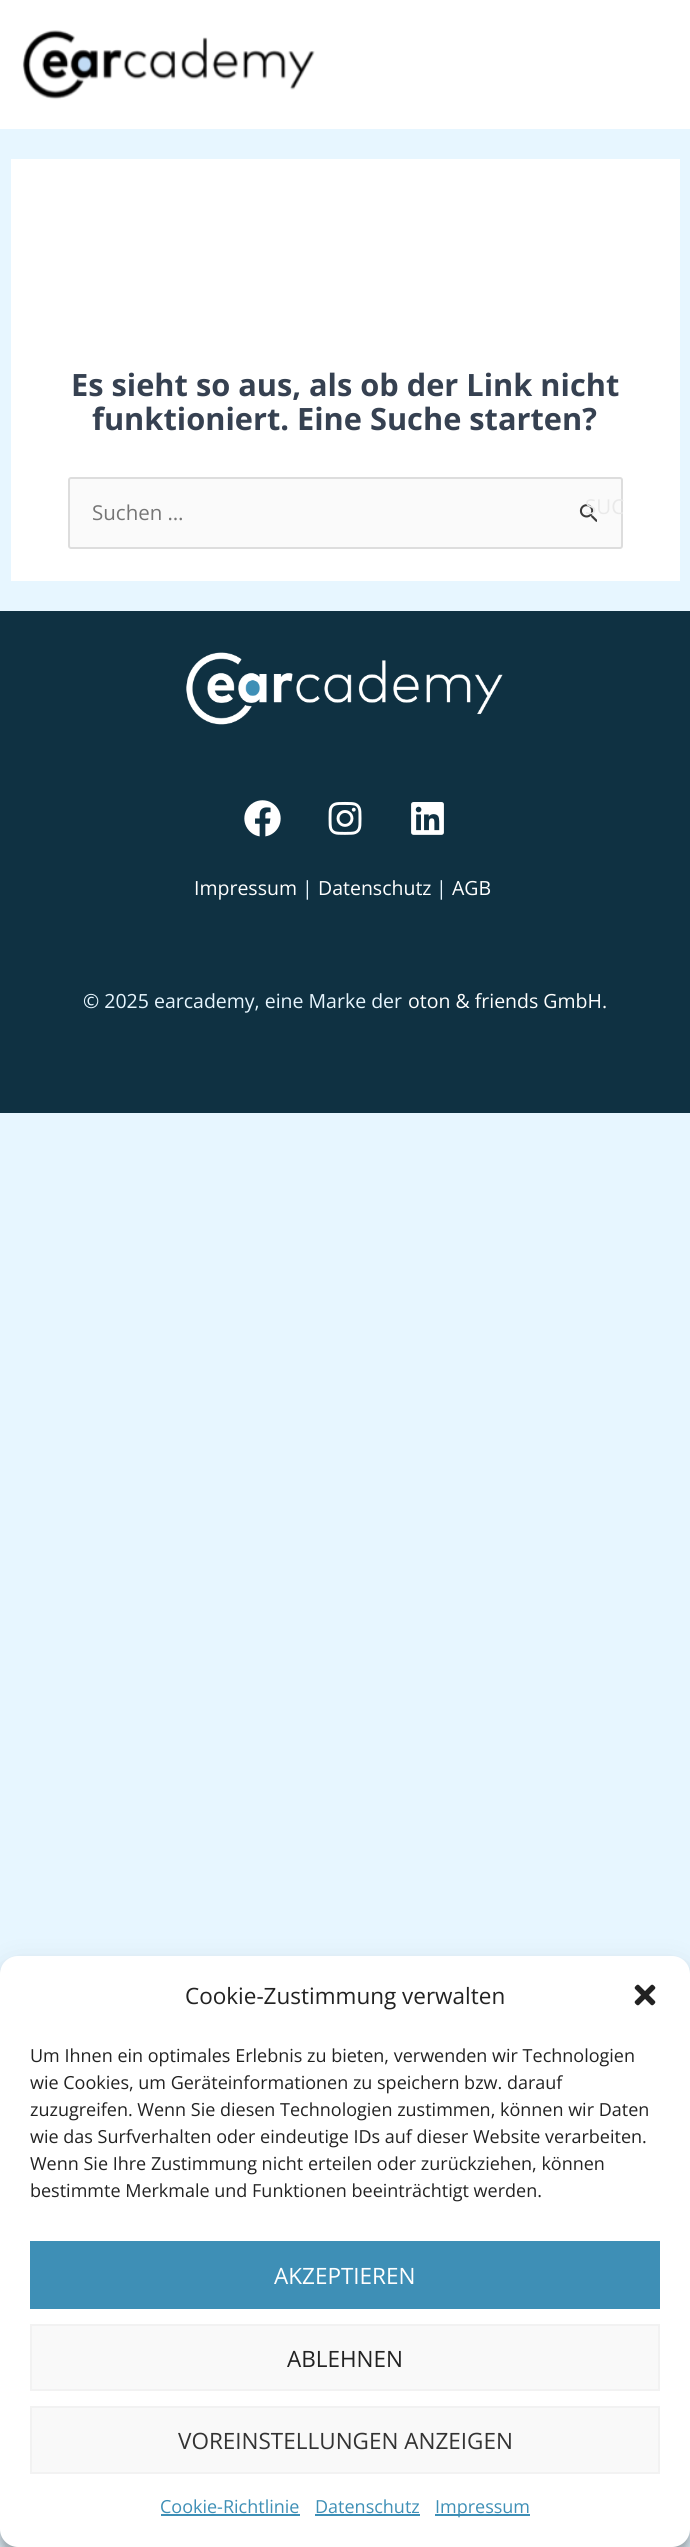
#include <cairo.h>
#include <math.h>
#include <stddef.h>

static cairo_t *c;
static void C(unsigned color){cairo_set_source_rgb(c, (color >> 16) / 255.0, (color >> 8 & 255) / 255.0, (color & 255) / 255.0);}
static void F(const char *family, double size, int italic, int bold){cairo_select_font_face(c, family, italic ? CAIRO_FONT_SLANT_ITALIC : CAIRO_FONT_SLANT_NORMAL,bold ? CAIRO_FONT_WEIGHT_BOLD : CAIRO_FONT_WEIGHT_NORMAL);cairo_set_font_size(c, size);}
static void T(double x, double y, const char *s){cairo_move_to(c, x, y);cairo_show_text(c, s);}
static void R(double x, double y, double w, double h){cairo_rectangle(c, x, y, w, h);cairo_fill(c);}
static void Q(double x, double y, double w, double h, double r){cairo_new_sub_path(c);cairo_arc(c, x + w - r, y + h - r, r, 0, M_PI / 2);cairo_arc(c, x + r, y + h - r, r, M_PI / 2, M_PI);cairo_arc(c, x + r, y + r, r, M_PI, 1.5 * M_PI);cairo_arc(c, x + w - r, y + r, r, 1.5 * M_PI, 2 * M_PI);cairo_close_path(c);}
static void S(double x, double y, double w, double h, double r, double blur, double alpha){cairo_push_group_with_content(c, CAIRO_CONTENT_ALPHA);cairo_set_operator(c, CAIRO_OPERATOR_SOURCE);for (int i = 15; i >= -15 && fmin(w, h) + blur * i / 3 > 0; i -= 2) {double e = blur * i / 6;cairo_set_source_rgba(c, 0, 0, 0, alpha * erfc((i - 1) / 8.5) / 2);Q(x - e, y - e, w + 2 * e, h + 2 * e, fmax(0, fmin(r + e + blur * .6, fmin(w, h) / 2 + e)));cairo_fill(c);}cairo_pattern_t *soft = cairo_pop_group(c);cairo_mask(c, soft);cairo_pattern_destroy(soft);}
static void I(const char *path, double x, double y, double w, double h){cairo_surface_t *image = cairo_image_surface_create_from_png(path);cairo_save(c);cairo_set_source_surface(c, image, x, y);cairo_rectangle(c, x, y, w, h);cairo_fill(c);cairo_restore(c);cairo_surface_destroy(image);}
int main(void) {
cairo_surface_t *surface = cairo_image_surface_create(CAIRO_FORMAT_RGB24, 690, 2547);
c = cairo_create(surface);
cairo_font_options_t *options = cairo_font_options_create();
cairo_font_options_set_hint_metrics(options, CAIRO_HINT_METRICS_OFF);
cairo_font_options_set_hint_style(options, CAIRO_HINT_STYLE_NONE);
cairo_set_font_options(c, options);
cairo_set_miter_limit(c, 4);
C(0xe7f6ff);
cairo_paint(c);
C(0xffffff);
R(0,0,690,129);
I("1.png",22,30,293,70);
R(11,159,669,422);
F("Open Sans",30.75,0,1);
C(0x364151);
T(71,396,"Es sieht so aus, als ob der Link nicht");
T(92,430,"funktioniert. Eine Suche starten?");
C(0xfafafa);
Q(69,478,553,70,2);
cairo_fill_preserve(c);
C(0xdddddd);
cairo_stroke(c);
F("Open Sans",20.5,0,0);
C(0x757575);
T(92,520,"Suchen …");
I("2.png",579,504,18,18);
C(0xe9e9e9);
T(585,514,"SUC");
C(0x0f3142);
R(0,611,690,502);
I("3.png",186,652,317,73);
I("4.png",244,800,37,37);
I("5.png",328,801,34,34);
I("6.png",411,802,33,33);
F("Open Sans",19.5,0,0);
C(0xffffff);
T(194,895,"Impressum");
C(0xe7f6ff);
T(302,895,"|");
C(0xffffff);
T(318,895,"Datenschutz");
C(0xe7f6ff);
T(436,895,"|");
C(0xffffff);
T(452,895,"AGB");
C(0xe7f6ff);
T(83,1008,"© 2025 earcademy, eine Marke der");
C(0xffffff);
T(408,1008,"oton & friends GmbH.");
C(0x000000);
S(0,1965,690,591,18,4.5,.23);
S(0,1971,690,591,18,15,.19);
C(0xffffff);
Q(0,1956,690,591,18);
cairo_fill(c);
F("Open Sans",22.5,0,0);
C(0x222222);
T(185,2004,"Cookie-Zustimmung verwalten");
I("7.png",634,1984,22,22);
F("Open Sans",18,0,0);
T(30,2062,"Um Ihnen ein optimales Erlebnis zu bieten, verwenden wir Technologien");
T(30,2089,"wie Cookies, um Geräteinformationen zu speichern bzw. darauf");
T(30,2116,"zuzugreifen. Wenn Sie diesen Technologien zustimmen, können wir Daten");
T(30,2143,"wie das Surfverhalten oder eindeutige IDs auf dieser Website verarbeiten.");
T(30,2170,"Wenn Sie Ihre Zustimmung nicht erteilen oder zurückziehen, können");
T(30,2197,"bestimmte Merkmale und Funktionen beeinträchtigt werden.");
C(0x3e8fb6);
R(30,2241,630,68);
F("Open Sans",22.5,0,0);
C(0xffffff);
T(274,2284,"AKZEPTIEREN");
C(0xf9f9f9);
cairo_rectangle(c,31,2325,628,65);
cairo_fill_preserve(c);
C(0xf2f2f2);
cairo_stroke(c);
C(0x222222);
T(287,2367,"ABLEHNEN");
C(0xf9f9f9);
cairo_rectangle(c,31,2407,628,66);
cairo_fill_preserve(c);
C(0xf2f2f2);
cairo_stroke(c);
C(0x333333);
T(178,2449,"VOREINSTELLUNGEN ANZEIGEN");
F("Open Sans",18,0,0);
C(0x3e8fb6);
T(160,2513,"Cookie-Richtlinie");
R(161,2514,139,2);
T(315,2513,"Datenschutz");
R(315,2514,105,2);
R(435,2514,95,2);
T(435,2513,"Impressum");
cairo_surface_write_to_png(surface, "o.png");
cairo_font_options_destroy(options);
cairo_destroy(c);
cairo_surface_destroy(surface);
return 0;
}
